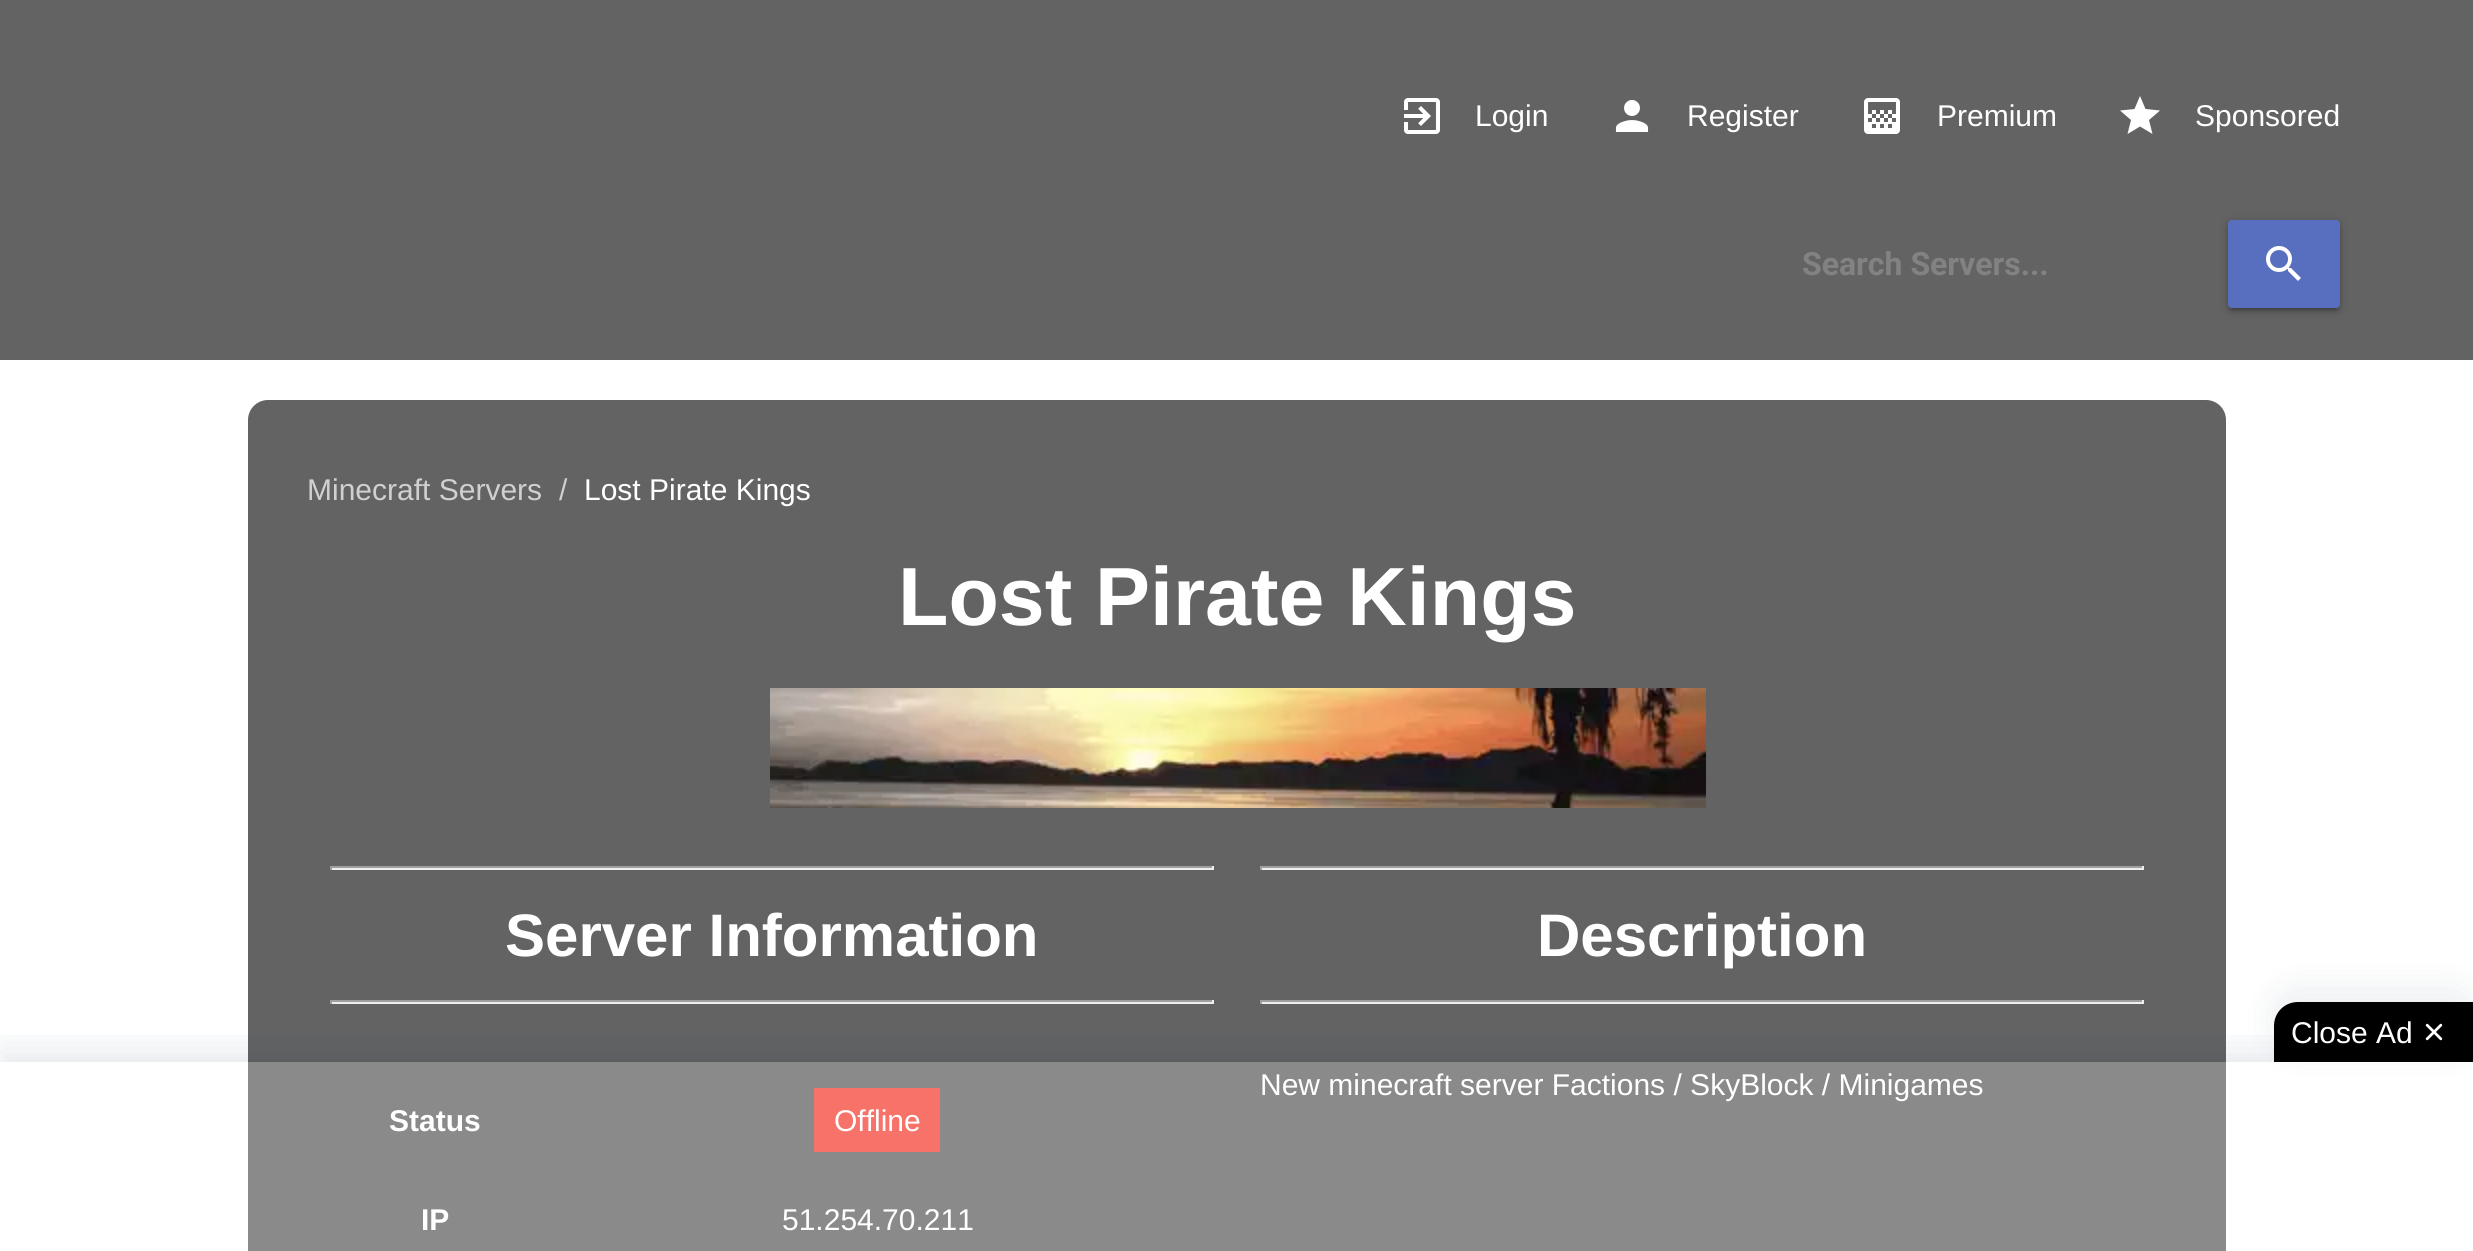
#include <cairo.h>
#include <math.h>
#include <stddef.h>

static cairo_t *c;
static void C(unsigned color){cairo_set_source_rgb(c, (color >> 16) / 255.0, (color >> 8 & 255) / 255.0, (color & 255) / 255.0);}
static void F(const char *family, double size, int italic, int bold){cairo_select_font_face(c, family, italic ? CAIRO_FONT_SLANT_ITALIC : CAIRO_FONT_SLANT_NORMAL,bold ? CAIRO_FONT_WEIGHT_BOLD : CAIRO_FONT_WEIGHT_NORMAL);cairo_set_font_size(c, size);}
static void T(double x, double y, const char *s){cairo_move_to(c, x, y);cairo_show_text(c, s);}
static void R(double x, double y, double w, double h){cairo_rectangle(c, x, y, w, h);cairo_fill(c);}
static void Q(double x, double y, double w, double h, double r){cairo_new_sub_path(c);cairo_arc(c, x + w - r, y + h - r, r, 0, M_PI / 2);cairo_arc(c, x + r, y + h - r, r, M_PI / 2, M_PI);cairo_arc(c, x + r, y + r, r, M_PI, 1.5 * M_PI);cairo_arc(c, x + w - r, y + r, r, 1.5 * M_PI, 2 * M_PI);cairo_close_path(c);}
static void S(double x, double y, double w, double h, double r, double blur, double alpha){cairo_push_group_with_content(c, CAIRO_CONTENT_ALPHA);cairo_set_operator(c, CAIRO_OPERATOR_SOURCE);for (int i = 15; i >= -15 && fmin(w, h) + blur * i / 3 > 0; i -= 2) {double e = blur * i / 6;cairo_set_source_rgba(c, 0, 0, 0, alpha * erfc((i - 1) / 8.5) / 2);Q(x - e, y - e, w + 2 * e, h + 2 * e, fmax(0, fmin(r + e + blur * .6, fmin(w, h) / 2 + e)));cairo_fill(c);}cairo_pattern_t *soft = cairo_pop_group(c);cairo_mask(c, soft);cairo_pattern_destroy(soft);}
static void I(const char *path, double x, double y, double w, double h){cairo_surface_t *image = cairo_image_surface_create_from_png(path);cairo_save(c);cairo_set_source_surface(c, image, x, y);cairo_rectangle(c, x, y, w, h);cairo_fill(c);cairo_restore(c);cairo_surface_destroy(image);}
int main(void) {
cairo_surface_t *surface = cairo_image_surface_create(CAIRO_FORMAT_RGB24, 2473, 1251);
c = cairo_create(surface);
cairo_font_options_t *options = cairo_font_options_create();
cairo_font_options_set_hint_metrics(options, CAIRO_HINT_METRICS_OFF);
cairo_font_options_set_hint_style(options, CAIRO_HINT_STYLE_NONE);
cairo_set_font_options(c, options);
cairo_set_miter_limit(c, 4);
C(0xffffff);
cairo_paint(c);
C(0x636363);
R(0,0,2473,360);
I("1.png",1404,98,36,36);
F("Liberation Sans",30,0,0);
C(0xffffff);
T(1475,126,"Login");
I("2.png",1615,100,34,32);
T(1687,126,"Register");
I("3.png",1864,98,36,36);
T(1937,126,"Premium");
cairo_new_path(c);
cairo_move_to(c,2140,126.5);
cairo_line_to(c,2127.5,134);
cairo_line_to(c,2131,120);
cairo_line_to(c,2120,110.5);
cairo_line_to(c,2134.5,109);
cairo_line_to(c,2140,96);
cairo_line_to(c,2145.5,109);
cairo_line_to(c,2160,110.5);
cairo_line_to(c,2149,120);
cairo_line_to(c,2152.5,134);
cairo_close_path(c);
cairo_fill(c);
T(2195,126,"Sponsored");
F("Roboto",32,0,1);
C(0x828282);
T(1802,275,"Search Servers...");
C(0x000000);
S(2228,222,112,88,4,5,.2);
S(2232,230,104,80,0,1,.12);
S(2228,224,112,88,4,2,.14);
C(0x586ebe);
Q(2228,220,112,88,4);
cairo_fill(c);
I("4.png",2266,246,35,35);
C(0x636363);
Q(248,400,1978,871,20);
cairo_fill(c);
C(0x8a8a8a);
R(248,1062,1978,189);
F("Liberation Sans",30,0,0);
C(0xd0d0d0);
T(307,500,"Minecraft Servers");
T(559,500,"/");
C(0xffffff);
T(584,500,"Lost Pirate Kings");
F("Liberation Sans",82.5,0,1);
T(898,625,"Lost Pirate Kings");
I("5.png",770,688,936,120);
C(0x9f9f9f);
R(330,866,884,2);
C(0xeeeeee);
R(1212,866,2,4);
R(330,868,884,2);
C(0x9f9f9f);
R(330,866,2,4);
F("Liberation Sans",60,0,1);
C(0xffffff);
T(505,956,"Server Information");
C(0x9f9f9f);
R(330,1000,884,2);
C(0xeeeeee);
R(1212,1000,2,4);
R(330,1002,884,2);
C(0x9f9f9f);
R(330,1000,2,4);
F("Liberation Sans",30,0,1);
C(0xffffff);
T(389,1131,"Status");
C(0xf77268);
R(814,1088,126,64);
F("Liberation Sans",30,0,0);
C(0xffffff);
T(834,1131,"Offline");
F("Liberation Sans",30,0,1);
T(421,1230,"IP");
F("Liberation Sans",30,0,0);
T(782,1230,"51.254.70.211");
C(0x9f9f9f);
R(1260,866,884,2);
C(0xeeeeee);
R(2142,866,2,4);
R(1260,868,884,2);
C(0x9f9f9f);
R(1260,866,2,4);
F("Liberation Sans",60,0,1);
C(0xffffff);
T(1537,956,"Description");
C(0x9f9f9f);
R(1260,1000,884,2);
C(0xeeeeee);
R(2142,1000,2,4);
R(1260,1002,884,2);
C(0x9f9f9f);
R(1260,1000,2,4);
F("Liberation Sans",30,0,0);
C(0xffffff);
T(1260,1095,"New minecraft server Factions / SkyBlock / Minigames");
cairo_save(c);
cairo_rectangle(c,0,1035,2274,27);
cairo_clip(c);
C(0x09204c);
S(0,1050,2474,190,0,18,.1);
cairo_restore(c);
C(0x09204c);
S(2274,990,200,60,24,18,.08);
C(0x000000);
cairo_new_path(c);
cairo_move_to(c,2298,1002);
cairo_line_to(c,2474,1002);
cairo_line_to(c,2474,1062);
cairo_line_to(c,2274,1062);
cairo_line_to(c,2274,1026);
cairo_curve_to(c,2274,1012.5,2284.5,1002,2298,1002);
cairo_close_path(c);
cairo_fill(c);
C(0xffffff);
T(2291,1043,"Close Ad");
I("6.png",2425,1023,18,18);
cairo_surface_write_to_png(surface, "o.png");
cairo_font_options_destroy(options);
cairo_destroy(c);
cairo_surface_destroy(surface);
return 0;
}
